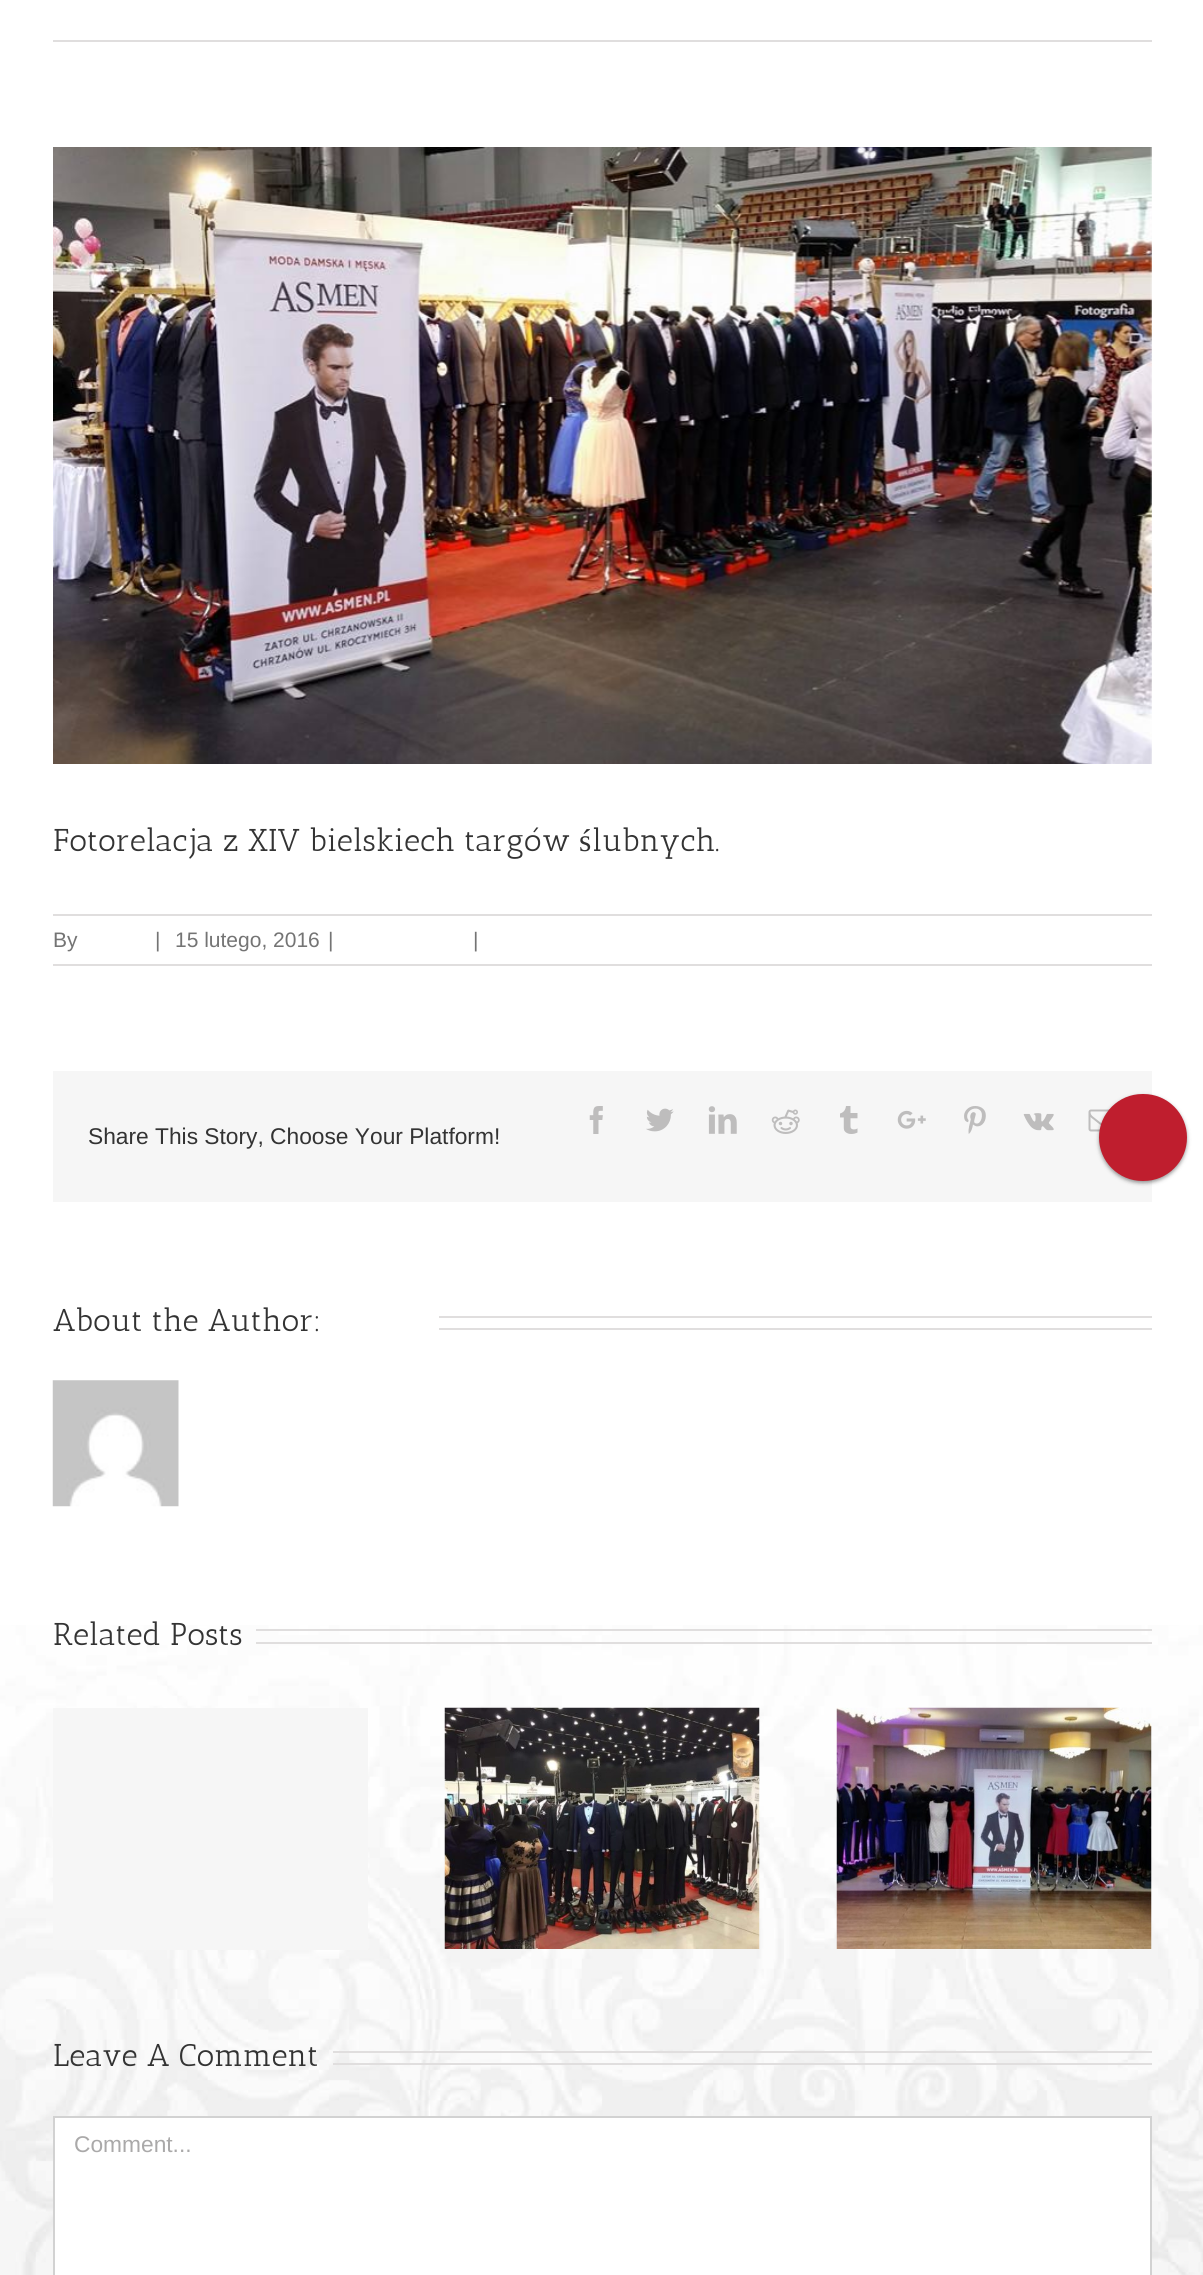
#include <cairo.h>
#include <math.h>
#include <stddef.h>

static cairo_t *c;
static void C(unsigned color){cairo_set_source_rgb(c, (color >> 16) / 255.0, (color >> 8 & 255) / 255.0, (color & 255) / 255.0);}
static void F(const char *family, double size, int italic, int bold){cairo_select_font_face(c, family, italic ? CAIRO_FONT_SLANT_ITALIC : CAIRO_FONT_SLANT_NORMAL,bold ? CAIRO_FONT_WEIGHT_BOLD : CAIRO_FONT_WEIGHT_NORMAL);cairo_set_font_size(c, size);}
static void T(double x, double y, const char *s){cairo_move_to(c, x, y);cairo_show_text(c, s);}
static void R(double x, double y, double w, double h){cairo_rectangle(c, x, y, w, h);cairo_fill(c);}
static void Q(double x, double y, double w, double h, double r){cairo_new_sub_path(c);cairo_arc(c, x + w - r, y + h - r, r, 0, M_PI / 2);cairo_arc(c, x + r, y + h - r, r, M_PI / 2, M_PI);cairo_arc(c, x + r, y + r, r, M_PI, 1.5 * M_PI);cairo_arc(c, x + w - r, y + r, r, 1.5 * M_PI, 2 * M_PI);cairo_close_path(c);}
static void S(double x, double y, double w, double h, double r, double blur, double alpha){cairo_push_group_with_content(c, CAIRO_CONTENT_ALPHA);cairo_set_operator(c, CAIRO_OPERATOR_SOURCE);for (int i = 15; i >= -15 && fmin(w, h) + blur * i / 3 > 0; i -= 2) {double e = blur * i / 6;cairo_set_source_rgba(c, 0, 0, 0, alpha * erfc((i - 1) / 8.5) / 2);Q(x - e, y - e, w + 2 * e, h + 2 * e, fmax(0, fmin(r + e + blur * .6, fmin(w, h) / 2 + e)));cairo_fill(c);}cairo_pattern_t *soft = cairo_pop_group(c);cairo_mask(c, soft);cairo_pattern_destroy(soft);}
static void I(const char *path, double x, double y, double w, double h){cairo_surface_t *image = cairo_image_surface_create_from_png(path);cairo_save(c);cairo_set_source_surface(c, image, x, y);cairo_rectangle(c, x, y, w, h);cairo_fill(c);cairo_restore(c);cairo_surface_destroy(image);}
int main(void) {
cairo_surface_t *surface = cairo_image_surface_create(CAIRO_FORMAT_RGB24, 1203, 2275);
c = cairo_create(surface);
cairo_font_options_t *options = cairo_font_options_create();
cairo_font_options_set_hint_metrics(options, CAIRO_HINT_METRICS_OFF);
cairo_font_options_set_hint_style(options, CAIRO_HINT_STYLE_NONE);
cairo_set_font_options(c, options);
cairo_set_miter_limit(c, 4);
C(0xffffff);
cairo_paint(c);
I("1.png",0,1625,1203,650);
C(0xe0dede);
R(53,40,1099,2);
I("2.png",53,147,1099,617);
F("Antic Slab",31.5,0,0);
C(0x333333);
T(53,851,"Fotorelacja z XIV bielskiech targów");
F("Liberation Serif",31.5,0,0);
T(579,851,"ś");
F("Antic Slab",31.5,0,0);
T(592,851,"lubnych.");
C(0xe0dede);
R(53,914,1099,2);
R(53,964,1099,2);
F("Liberation Sans",21,0,0);
C(0x747474);
T(53,947,"By");
T(155,947,"|");
T(175,947,"15 lutego, 2016");
T(328,947,"|");
T(473,947,"|");
C(0xf6f6f6);
R(53,1071,1099,131);
I("3.png",589,1106,14,28);
I("4.png",646,1108,28,24);
I("5.png",708,1106,29,28);
I("6.png",771,1109,29,25);
I("7.png",840,1106,18,28);
I("8.png",897,1110,29,19);
I("9.png",964,1106,22,28);
I("10.png",1023,1113,31,18);
I("11.png",1088,1109,22,23);
F("Liberation Sans",22.75,0,0);
C(0x333333);
T(88,1144,"Share This Story, Choose Your Platform!");
F("Antic Slab",31.5,0,0);
T(53,1331,"About the Author:");
C(0xe0dede);
R(439,1316,713,2);
R(439,1328,713,2);
I("12.png",52,1380,127,127);
C(0x333333);
T(53,1645,"Related Posts");
C(0xe0dede);
R(256,1629,896,2);
R(256,1642,896,2);
C(0xf6f6f6);
R(53,1708,315,242);
I("13.png",444,1707,316,242);
I("14.png",836,1707,316,242);
C(0x333333);
T(53,2066,"Leave A Comment");
C(0xe0dede);
R(333,2051,819,2);
R(333,2063,819,2);
C(0xffffff);
cairo_rectangle(c,54,2117,1097,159);
cairo_fill_preserve(c);
C(0xd2d2d2);
cairo_stroke(c);
F("Liberation Sans",22.75,0,0);
C(0xaaa9a9);
T(74,2152,"Comment...");
C(0x000000);
S(1099,1096,88,87,43.5,2,.4);
C(0xbf1e2e);
Q(1099,1094,88,87,43.5);
cairo_fill(c);
cairo_surface_write_to_png(surface, "o.png");
cairo_font_options_destroy(options);
cairo_destroy(c);
cairo_surface_destroy(surface);
return 0;
}
